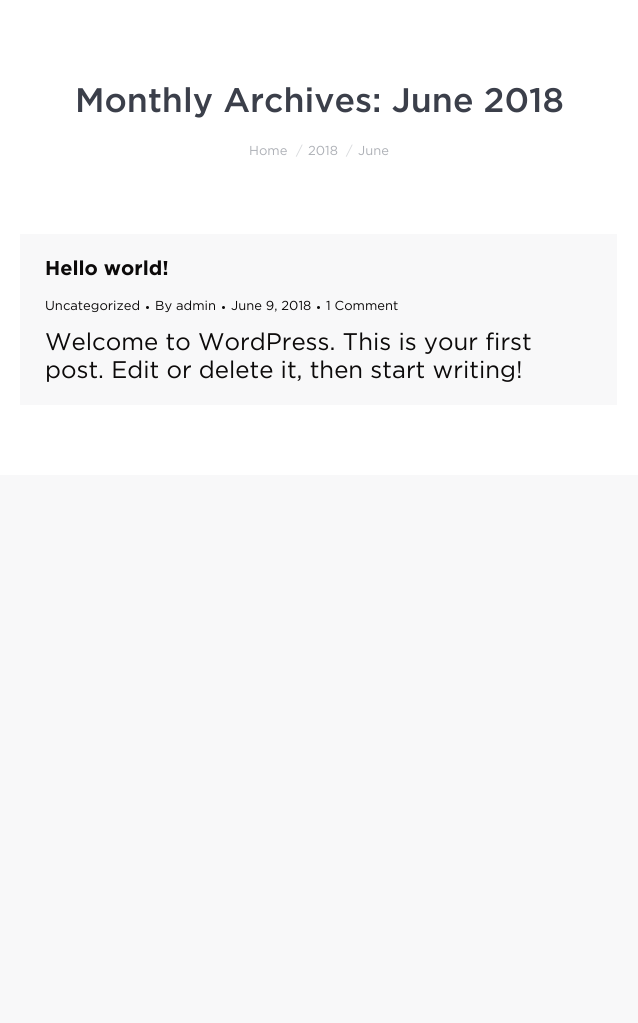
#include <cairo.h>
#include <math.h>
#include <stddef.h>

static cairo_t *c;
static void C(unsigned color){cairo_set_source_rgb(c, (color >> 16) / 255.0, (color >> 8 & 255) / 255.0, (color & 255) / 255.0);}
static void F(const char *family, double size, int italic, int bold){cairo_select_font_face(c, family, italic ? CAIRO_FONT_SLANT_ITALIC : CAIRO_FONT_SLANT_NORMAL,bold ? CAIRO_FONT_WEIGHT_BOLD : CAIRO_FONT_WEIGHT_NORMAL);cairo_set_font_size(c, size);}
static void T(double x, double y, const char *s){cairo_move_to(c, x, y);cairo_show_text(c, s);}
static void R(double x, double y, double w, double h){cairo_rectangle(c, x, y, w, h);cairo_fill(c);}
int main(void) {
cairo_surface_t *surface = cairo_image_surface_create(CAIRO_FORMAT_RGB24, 638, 1023);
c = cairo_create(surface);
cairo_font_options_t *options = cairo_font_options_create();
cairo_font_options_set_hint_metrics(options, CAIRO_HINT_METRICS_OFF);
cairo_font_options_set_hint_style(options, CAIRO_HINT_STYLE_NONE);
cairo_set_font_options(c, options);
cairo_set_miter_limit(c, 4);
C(0xf8f8f9);
cairo_paint(c);
C(0xffffff);
R(0,0,638,475);
F("Gotham Medium",34,0,0);
C(0x3b3f4a);
T(75,112,"Monthly Archives: June 2018");
F("Gotham",13,0,0);
C(0xadb0b6);
T(249,155,"Home");
C(0xd6d8db);
T(296,155,"/");
C(0xadb0b6);
T(308,155,"2018");
C(0xd6d8db);
T(346,155,"/");
C(0xadb0b6);
T(358,155,"June");
C(0xf8f8f9);
R(20,234,597,171);
F("Gotham",20,0,1);
C(0x0c0a0a);
T(45,275,"Hello world!");
F("Gotham",13,0,0);
T(45,310,"Uncategorized");
C(0x0c0b0b);
cairo_new_path(c);
cairo_arc(c,147.5,307.5,1.5,0,2 * M_PI);
cairo_fill(c);
C(0x0c0a0a);
T(155,310,"By admin");
C(0x0c0b0b);
cairo_new_path(c);
cairo_arc(c,223.5,307.5,1.5,0,2 * M_PI);
cairo_fill(c);
C(0x0c0a0a);
T(231,310,"June 9, 2018");
C(0x0c0b0b);
cairo_new_path(c);
cairo_arc(c,318.5,307.5,1.5,0,2 * M_PI);
cairo_fill(c);
C(0x0c0a0a);
T(326,310,"1 Comment");
F("Gotham",24,0,0);
T(45,350,"Welcome to WordPress. This is your first");
T(45,378,"post. Edit or delete it, then start writing!");
cairo_surface_write_to_png(surface, "o.png");
cairo_font_options_destroy(options);
cairo_destroy(c);
cairo_surface_destroy(surface);
return 0;
}
